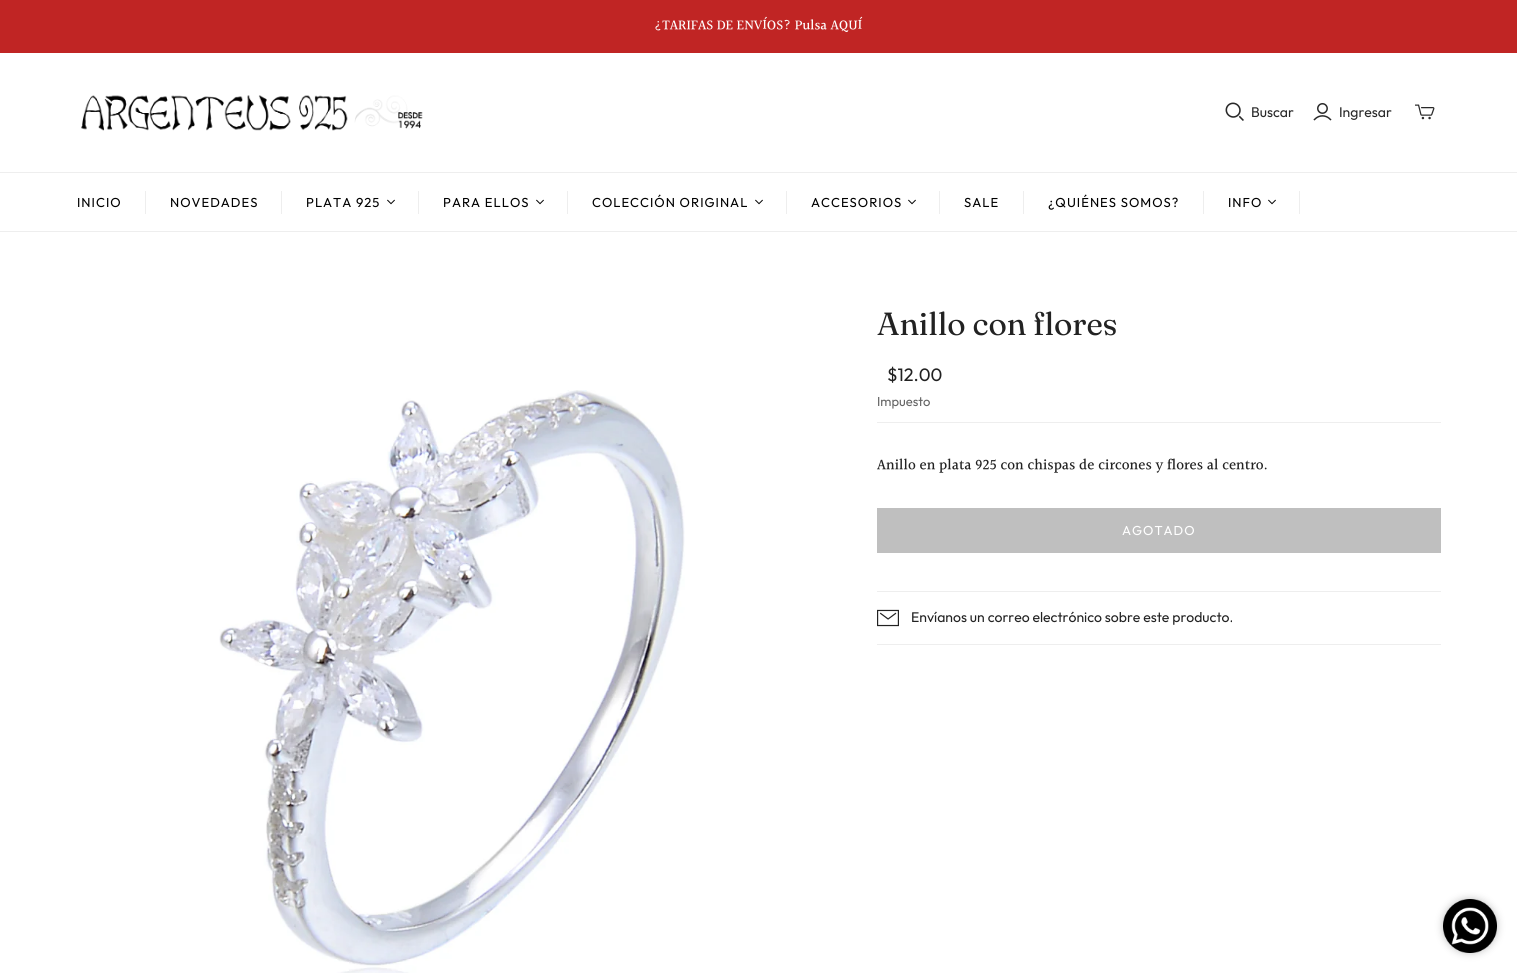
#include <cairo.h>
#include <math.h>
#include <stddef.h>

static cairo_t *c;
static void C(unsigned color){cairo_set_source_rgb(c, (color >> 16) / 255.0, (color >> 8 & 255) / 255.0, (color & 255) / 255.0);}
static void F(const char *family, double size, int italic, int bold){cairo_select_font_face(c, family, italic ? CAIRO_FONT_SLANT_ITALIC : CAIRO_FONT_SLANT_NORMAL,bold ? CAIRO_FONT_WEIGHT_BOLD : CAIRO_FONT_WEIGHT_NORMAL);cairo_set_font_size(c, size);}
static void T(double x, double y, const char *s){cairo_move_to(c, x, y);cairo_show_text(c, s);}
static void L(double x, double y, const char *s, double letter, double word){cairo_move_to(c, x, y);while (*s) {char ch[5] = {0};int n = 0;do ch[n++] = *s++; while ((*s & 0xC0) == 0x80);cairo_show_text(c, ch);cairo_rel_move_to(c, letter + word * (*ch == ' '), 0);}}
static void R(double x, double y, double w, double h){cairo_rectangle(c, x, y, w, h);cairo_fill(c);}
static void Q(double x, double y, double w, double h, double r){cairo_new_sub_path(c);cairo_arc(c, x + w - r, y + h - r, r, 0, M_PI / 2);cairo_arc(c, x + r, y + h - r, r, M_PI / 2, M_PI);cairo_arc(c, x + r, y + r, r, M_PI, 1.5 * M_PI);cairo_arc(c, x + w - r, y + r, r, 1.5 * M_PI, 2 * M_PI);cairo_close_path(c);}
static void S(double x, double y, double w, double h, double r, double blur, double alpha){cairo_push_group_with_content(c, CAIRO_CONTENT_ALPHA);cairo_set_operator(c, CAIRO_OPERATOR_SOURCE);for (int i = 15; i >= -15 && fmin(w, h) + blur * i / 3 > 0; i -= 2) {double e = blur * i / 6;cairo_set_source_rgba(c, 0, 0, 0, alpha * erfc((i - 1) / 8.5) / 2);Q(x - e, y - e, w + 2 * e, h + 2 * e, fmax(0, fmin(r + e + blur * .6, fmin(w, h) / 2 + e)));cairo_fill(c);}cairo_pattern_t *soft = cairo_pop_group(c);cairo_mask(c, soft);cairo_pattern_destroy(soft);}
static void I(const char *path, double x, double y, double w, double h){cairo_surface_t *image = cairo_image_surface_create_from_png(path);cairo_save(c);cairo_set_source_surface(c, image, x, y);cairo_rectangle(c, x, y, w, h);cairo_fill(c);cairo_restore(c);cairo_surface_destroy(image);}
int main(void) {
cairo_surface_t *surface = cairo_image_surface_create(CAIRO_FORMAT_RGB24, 1517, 973);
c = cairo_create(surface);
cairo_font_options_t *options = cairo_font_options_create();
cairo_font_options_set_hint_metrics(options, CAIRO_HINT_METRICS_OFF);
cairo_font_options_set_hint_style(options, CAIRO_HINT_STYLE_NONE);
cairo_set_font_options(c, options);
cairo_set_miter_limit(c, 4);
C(0xffffff);
cairo_paint(c);
C(0xc02524);
R(0,0,1517,53);
F("Halant Medium",14,0,0);
C(0xffffff);
T(654,30,"¿TARIFAS DE ENVÍOS? Pulsa AQUÍ");
I("1.png",81,95,342,36);
I("2.png",1225,102,19,19);
F("Outfit",14,0,0);
C(0x292929);
T(1251,117,"Buscar");
I("3.png",1313,103,19,18);
T(1339,117,"Ingresar");
I("4.png",1415,104,20,16);
C(0xeeeeee);
R(0,172,1517,1);
R(0,231,1517,1);
F("Outfit",13,0,0);
C(0x000000);
L(77,207,"INICIO",1,0);
C(0xeeeeee);
R(145,191,1,23);
C(0x000000);
L(170,207,"NOVEDADES",1,0);
C(0xeeeeee);
R(281,191,1,23);
C(0x000000);
L(306,207,"PLATA 925",1,0);
I("5.png",387,199,8,6);
C(0xeeeeee);
R(418,191,1,23);
C(0x000000);
L(443,207,"PARA ELLOS",1,0);
I("5.png",536,199,8,6);
C(0xeeeeee);
R(567,191,1,23);
C(0x000000);
L(592,207,"COLECCIÓN ORIGINAL",1,0);
I("5.png",755,199,8,6);
C(0xeeeeee);
R(786,191,1,23);
C(0x000000);
L(811,207,"ACCESORIOS",1,0);
I("5.png",908,199,8,6);
C(0xeeeeee);
R(939,191,1,23);
C(0x000000);
L(964,207,"SALE",1,0);
C(0xeeeeee);
R(1023,191,1,23);
C(0x000000);
L(1048,207,"¿QUIÉNES SOMOS?",1,0);
C(0xeeeeee);
R(1203,191,1,23);
C(0x000000);
L(1228,207,"INFO",1,0);
I("5.png",1268,199,8,6);
C(0xeeeeee);
R(1299,191,1,23);
I("6.png",219,390,466,583);
F("Fraunces",32,0,0);
C(0x222222);
T(877,335,"Anillo con flores");
C(0xeeeeee);
R(877,422,564,1);
F("Outfit",18,0,0);
C(0x222222);
T(887,381,"$12.00");
F("Outfit",13,0,0);
C(0x646464);
T(877,406,"Impuesto");
F("Halant Medium",15,0,0);
C(0x222222);
T(877,470,"Anillo en plata 925 con chispas de circones y flores al centro.");
C(0xeeeeee);
R(877,591,564,1);
C(0xbfbfbf);
R(877,508,564,45);
F("Outfit",13,0,0);
C(0xffffff);
L(1122,535,"AGOTADO",1,0);
C(0xeeeeee);
R(877,644,564,1);
I("7.png",877,609,22,18);
F("Outfit",14,0,0);
C(0x222222);
T(911,622,"Envíanos un correo electrónico sobre este producto.");
C(0xc2c2c2);
S(1443,899,54,54,27,4,1);
I("8.png",1443,899,54,54);
cairo_surface_write_to_png(surface, "o.png");
cairo_font_options_destroy(options);
cairo_destroy(c);
cairo_surface_destroy(surface);
return 0;
}
